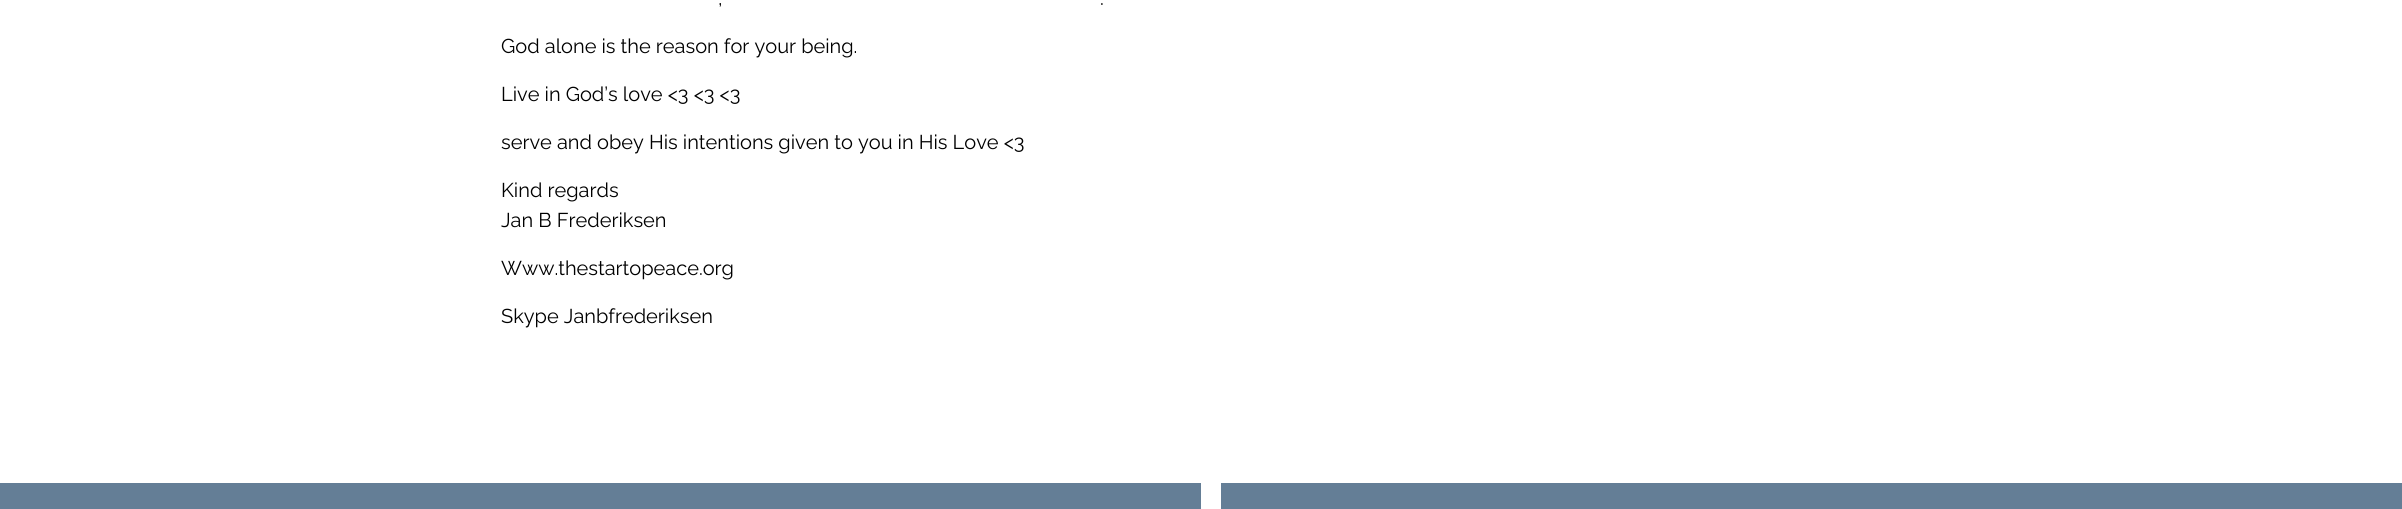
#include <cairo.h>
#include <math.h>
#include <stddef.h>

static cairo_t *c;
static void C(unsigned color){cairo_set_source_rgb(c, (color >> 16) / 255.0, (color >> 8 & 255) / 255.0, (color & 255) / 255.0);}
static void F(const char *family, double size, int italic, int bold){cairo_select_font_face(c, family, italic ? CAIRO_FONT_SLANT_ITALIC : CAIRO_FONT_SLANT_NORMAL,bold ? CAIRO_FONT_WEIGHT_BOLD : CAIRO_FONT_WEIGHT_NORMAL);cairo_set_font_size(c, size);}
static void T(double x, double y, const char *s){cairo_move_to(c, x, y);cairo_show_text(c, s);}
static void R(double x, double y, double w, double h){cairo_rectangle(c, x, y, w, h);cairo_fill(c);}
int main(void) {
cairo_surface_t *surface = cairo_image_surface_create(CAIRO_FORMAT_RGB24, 2402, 509);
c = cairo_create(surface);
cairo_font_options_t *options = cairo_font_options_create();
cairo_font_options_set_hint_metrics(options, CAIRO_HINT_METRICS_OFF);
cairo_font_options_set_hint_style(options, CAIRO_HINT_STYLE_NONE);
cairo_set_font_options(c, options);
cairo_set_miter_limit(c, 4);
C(0xffffff);
cairo_paint(c);
F("Raleway",20,0,0);
C(0x000000);
T(718,5,",");
T(1100,5,".");
T(501,53,"God alone is the reason for your being.");
T(501,101,"Live in God’s love <3 <3 <3");
T(501,149,"serve and obey His intentions given to you in His Love <3");
T(501,197,"Kind regards");
T(501,227,"Jan B Frederiksen");
T(501,275,"Www.thestartopeace.org");
T(501,323,"Skype Janbfrederiksen");
C(0x647e96);
R(0,483,1201,26);
R(1221,483,1181,26);
cairo_surface_write_to_png(surface, "o.png");
cairo_font_options_destroy(options);
cairo_destroy(c);
cairo_surface_destroy(surface);
return 0;
}
